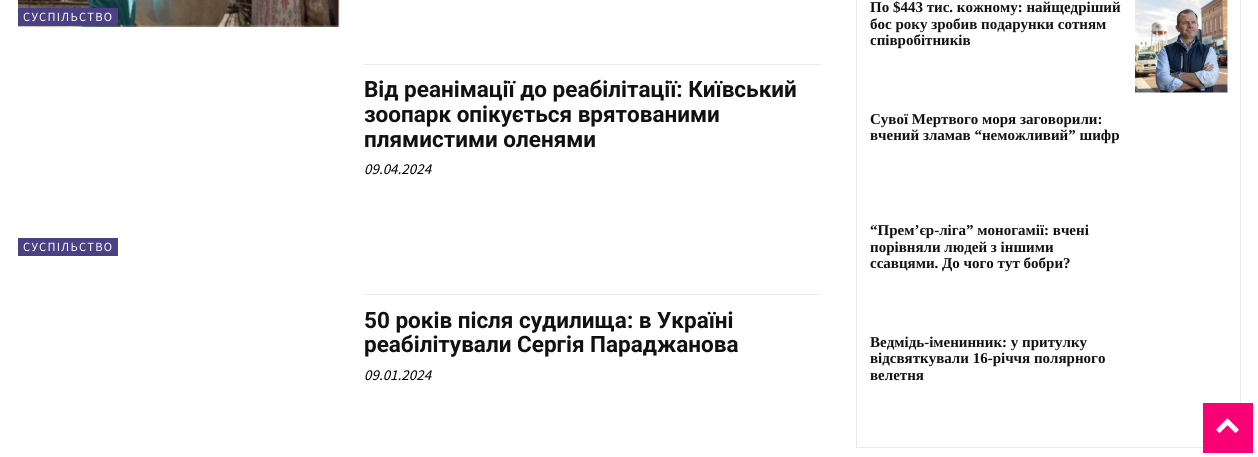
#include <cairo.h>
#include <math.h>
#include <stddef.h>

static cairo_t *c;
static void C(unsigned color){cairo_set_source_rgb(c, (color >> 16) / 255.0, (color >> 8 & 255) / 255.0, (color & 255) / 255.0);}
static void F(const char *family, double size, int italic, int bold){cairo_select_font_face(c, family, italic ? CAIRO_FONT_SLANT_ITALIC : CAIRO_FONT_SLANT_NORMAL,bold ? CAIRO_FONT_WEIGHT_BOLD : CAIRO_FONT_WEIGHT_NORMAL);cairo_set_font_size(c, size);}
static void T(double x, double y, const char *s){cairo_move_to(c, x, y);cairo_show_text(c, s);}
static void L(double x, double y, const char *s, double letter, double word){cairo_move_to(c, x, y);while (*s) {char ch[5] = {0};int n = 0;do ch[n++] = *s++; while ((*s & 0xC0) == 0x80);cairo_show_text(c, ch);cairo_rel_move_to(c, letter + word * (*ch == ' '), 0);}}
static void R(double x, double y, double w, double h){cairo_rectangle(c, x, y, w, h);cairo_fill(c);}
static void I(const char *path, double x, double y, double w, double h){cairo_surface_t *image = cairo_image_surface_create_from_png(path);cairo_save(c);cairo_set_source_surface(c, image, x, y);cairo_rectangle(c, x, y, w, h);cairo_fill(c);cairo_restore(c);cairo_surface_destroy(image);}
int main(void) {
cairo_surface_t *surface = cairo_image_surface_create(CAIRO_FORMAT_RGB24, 1258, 457);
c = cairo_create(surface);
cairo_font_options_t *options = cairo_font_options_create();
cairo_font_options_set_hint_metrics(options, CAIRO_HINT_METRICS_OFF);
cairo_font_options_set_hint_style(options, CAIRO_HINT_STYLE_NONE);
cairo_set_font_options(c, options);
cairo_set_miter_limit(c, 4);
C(0xffffff);
cairo_paint(c);
I("1.png",18,0,322,27);
C(0x4c4084);
R(18,8,100,18);
F("Source Sans Pro",12.5,0,0);
C(0xffffff);
L(23,21,"СУСПІЛЬСТВО",1.25,0);
C(0xeaeaea);
R(364,64,457,1);
F("Roboto",22.5,0,1);
C(0x111111);
T(364,97,"Від реанімації до реабілітації: Київський");
T(364,122,"зоопарк опікується врятованими");
T(364,147,"плямистими оленями");
F("Source Sans Pro",15,1,0);
C(0x000000);
T(364,174,"09.04.2024");
C(0x4c4084);
R(18,238,100,18);
F("Source Sans Pro",12.5,0,0);
C(0xffffff);
L(23,251,"СУСПІЛЬСТВО",1.25,0);
C(0xeaeaea);
R(364,294,457,1);
F("Roboto",22.5,0,1);
C(0x111111);
T(364,328,"50 років після судилища: в Україні");
T(364,352,"реабілітували Сергія Параджанова");
F("Source Sans Pro",15,1,0);
C(0x000000);
T(364,380,"09.01.2024");
cairo_rectangle(c,856.5,-.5,384,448);
C(0xeaeaea);
cairo_set_line_width(c,1);
cairo_stroke(c);
F("Liberation Serif",15,0,1);
C(0x111111);
T(870,12,"По $443 тис. кожному: найщедріший");
T(870,29,"бос року зробив подарунки сотням");
T(870,45,"співробітників");
I("2.png",1135,0,93,93);
T(870,124,"Сувої Мертвого моря заговорили:");
T(870,140,"вчений зламав “неможливий” шифр");
T(870,235,"“Прем’єр-ліга” моногамії: вчені");
T(870,252,"порівняли людей з іншими");
T(870,268,"ссавцями. До чого тут бобри?");
T(870,347,"Ведмідь-іменинник: у притулку");
T(870,363,"відсвяткували 16-річчя полярного");
T(870,380,"велетня");
C(0xf90074);
R(1203,403,50,50);
I("3.png",1216,418,23,15);
cairo_surface_write_to_png(surface, "o.png");
cairo_font_options_destroy(options);
cairo_destroy(c);
cairo_surface_destroy(surface);
return 0;
}
